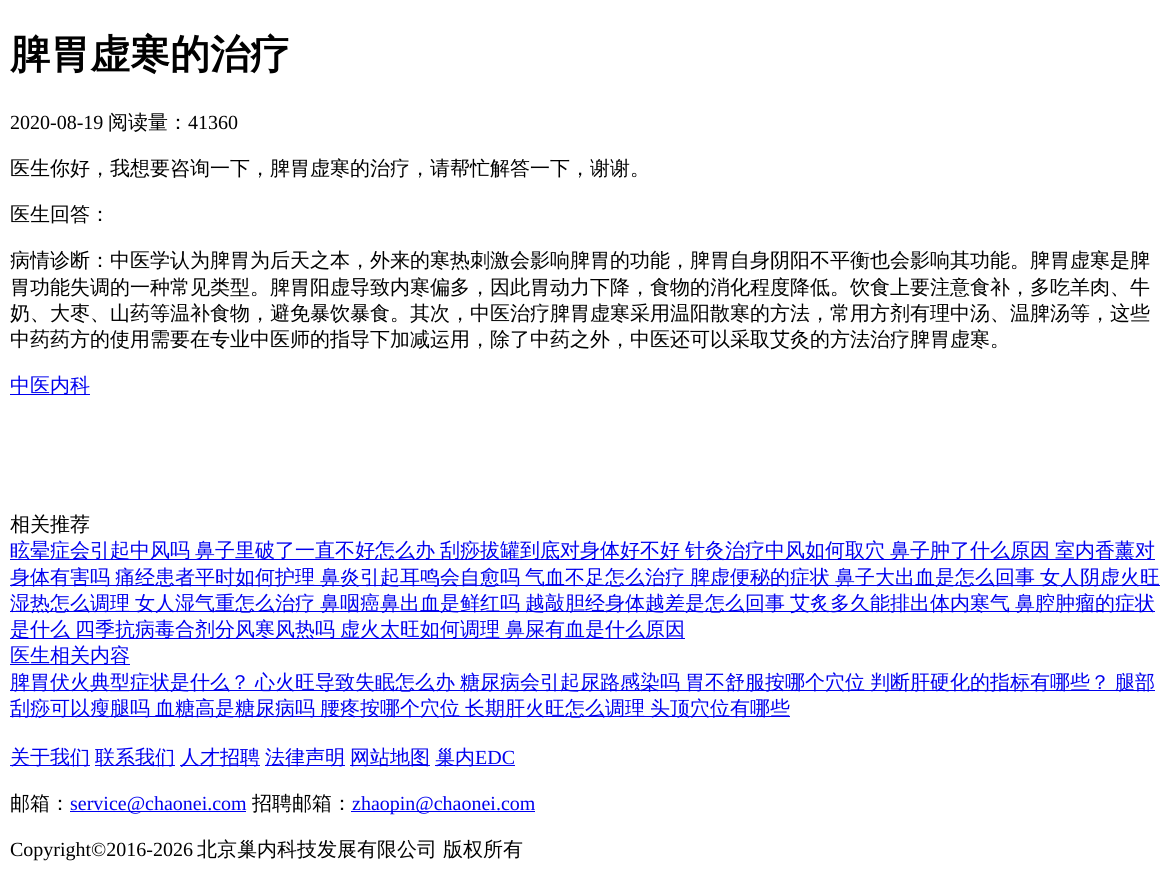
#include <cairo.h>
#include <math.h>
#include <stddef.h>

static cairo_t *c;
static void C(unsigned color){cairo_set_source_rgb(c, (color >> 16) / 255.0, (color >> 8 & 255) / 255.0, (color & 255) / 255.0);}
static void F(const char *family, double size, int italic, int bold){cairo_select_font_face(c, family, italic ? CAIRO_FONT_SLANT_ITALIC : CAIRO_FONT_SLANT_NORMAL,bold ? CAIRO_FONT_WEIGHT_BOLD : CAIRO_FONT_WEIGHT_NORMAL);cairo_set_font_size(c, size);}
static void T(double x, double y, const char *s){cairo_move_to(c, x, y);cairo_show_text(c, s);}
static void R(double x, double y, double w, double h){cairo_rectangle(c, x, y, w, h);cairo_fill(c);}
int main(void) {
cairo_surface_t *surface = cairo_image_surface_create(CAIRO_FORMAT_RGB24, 1174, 869);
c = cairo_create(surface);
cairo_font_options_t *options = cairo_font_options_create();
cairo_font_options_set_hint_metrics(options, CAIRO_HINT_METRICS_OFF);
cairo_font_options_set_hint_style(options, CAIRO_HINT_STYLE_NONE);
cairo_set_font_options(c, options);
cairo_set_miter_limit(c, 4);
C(0xffffff);
cairo_paint(c);
F("WenQuanYi Zen Hei",40,0,1);
C(0x000000);
T(10,68,"脾胃虚寒的治疗");
F("Liberation Serif",20,0,0);
T(10,129,"2020-08-19");
F("WenQuanYi Zen Hei Medium",20,0,0);
T(108,129,"阅读量：");
F("Liberation Serif",20,0,0);
T(188,129,"41360");
F("WenQuanYi Zen Hei Medium",20,0,0);
T(10,175,"医生你好，我想要咨询一下，脾胃虚寒的治疗，请帮忙解答一下，谢谢。");
T(10,221,"医生回答：");
T(10,267,"病情诊断：中医学认为脾胃为后天之本，外来的寒热刺激会影响脾胃的功能，脾胃自身阴阳不平衡也会影响其功能。脾胃虚寒是脾");
T(10,294,"胃功能失调的一种常见类型。脾胃阳虚导致内寒偏多，因此胃动力下降，食物的消化程度降低。饮食上要注意食补，多吃羊肉、牛");
T(10,320,"奶、大枣、山药等温补食物，避免暴饮暴食。其次，中医治疗脾胃虚寒采用温阳散寒的方法，常用方剂有理中汤、温脾汤等，这些");
T(10,346,"中药药方的使用需要在专业中医师的指导下加减运用，除了中药之外，中医还可以采取艾灸的方法治疗脾胃虚寒。");
C(0x0000ee);
R(10,394,80,1);
T(10,392,"中医内科");
C(0x000000);
T(10,531,"相关推荐");
C(0x0000ee);
R(10,559,1145,1);
T(10,557,"眩晕症会引起中风吗");
T(195,557,"鼻子里破了一直不好怎么办");
T(440,557,"刮痧拔罐到底对身体好不好");
T(685,557,"针灸治疗中风如何取穴");
T(890,557,"鼻子肿了什么原因");
T(1055,557,"室内香薰对");
R(10,585,1150,1);
T(10,584,"身体有害吗");
T(115,584,"痛经患者平时如何护理");
T(320,584,"鼻炎引起耳鸣会自愈吗");
T(525,584,"气血不足怎么治疗");
T(690,584,"脾虚便秘的症状");
T(835,584,"鼻子大出血是怎么回事");
T(1040,584,"女人阴虚火旺");
R(10,611,1145,1);
T(10,610,"湿热怎么调理");
T(135,610,"女人湿气重怎么治疗");
T(320,610,"鼻咽癌鼻出血是鲜红吗");
T(525,610,"越敲胆经身体越差是怎么回事");
T(790,610,"艾炙多久能排出体内寒气");
T(1015,610,"鼻腔肿瘤的症状");
R(10,638,675,1);
T(10,636,"是什么");
T(75,636,"四季抗病毒合剂分风寒风热吗");
T(340,636,"虚火太旺如何调理");
T(505,636,"鼻屎有血是什么原因");
R(10,664,120,1);
T(10,662,"医生相关内容");
R(10,690,1145,1);
T(10,689,"脾胃伏火典型症状是什么？");
T(255,689,"心火旺导致失眠怎么办");
T(460,689,"糖尿病会引起尿路感染吗");
T(685,689,"胃不舒服按哪个穴位");
T(870,689,"判断肝硬化的指标有哪些？");
T(1115,689,"腿部");
R(10,716,780,1);
T(10,715,"刮痧可以瘦腿吗");
T(155,715,"血糖高是糖尿病吗");
T(320,715,"腰疼按哪个穴位");
T(465,715,"长期肝火旺怎么调理");
T(650,715,"头顶穴位有哪些");
R(10,765,80,1);
T(10,764,"关于我们");
R(95,765,80,1);
T(95,764,"联系我们");
R(180,765,80,1);
T(180,764,"人才招聘");
R(265,765,80,1);
T(265,764,"法律声明");
R(350,765,80,1);
T(350,764,"网站地图");
R(435,765,80,1);
T(435,764,"巢内");
F("Liberation Serif",20,0,0);
T(475,764,"EDC");
F("WenQuanYi Zen Hei Medium",20,0,0);
C(0x000000);
T(10,810,"邮箱：");
C(0x0000ee);
R(70,811,176,1);
F("Liberation Serif",20,0,0);
T(70,810,"service@chaonei.com");
F("WenQuanYi Zen Hei Medium",20,0,0);
C(0x000000);
T(252,810,"招聘邮箱：");
C(0x0000ee);
R(351,811,184,1);
F("Liberation Serif",20,0,0);
T(352,810,"zhaopin@chaonei.com");
C(0x000000);
T(10,856,"Copyright©2016-2026");
F("WenQuanYi Zen Hei Medium",20,0,0);
T(197,856,"北京巢内科技发展有限公司 版权所有");
cairo_surface_write_to_png(surface, "o.png");
cairo_font_options_destroy(options);
cairo_destroy(c);
cairo_surface_destroy(surface);
return 0;
}
